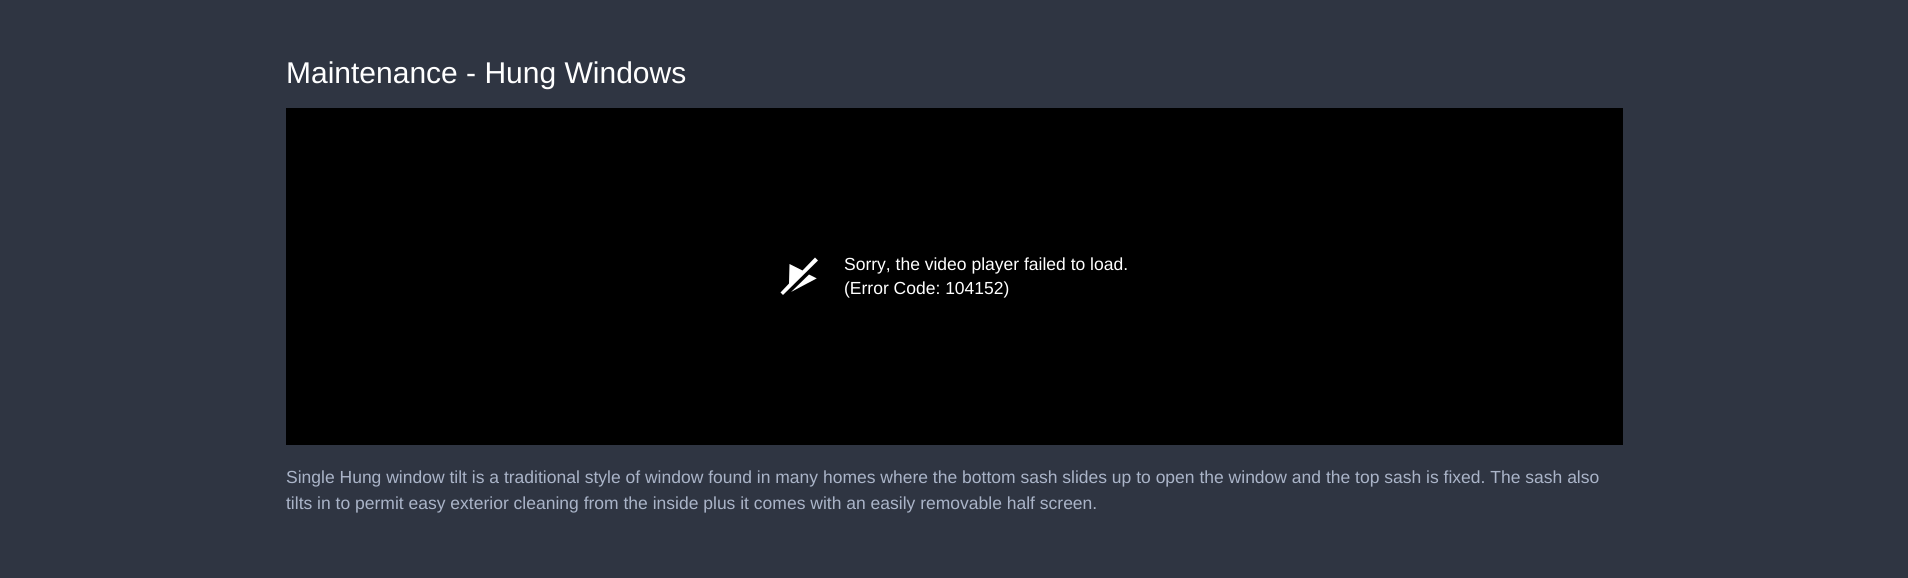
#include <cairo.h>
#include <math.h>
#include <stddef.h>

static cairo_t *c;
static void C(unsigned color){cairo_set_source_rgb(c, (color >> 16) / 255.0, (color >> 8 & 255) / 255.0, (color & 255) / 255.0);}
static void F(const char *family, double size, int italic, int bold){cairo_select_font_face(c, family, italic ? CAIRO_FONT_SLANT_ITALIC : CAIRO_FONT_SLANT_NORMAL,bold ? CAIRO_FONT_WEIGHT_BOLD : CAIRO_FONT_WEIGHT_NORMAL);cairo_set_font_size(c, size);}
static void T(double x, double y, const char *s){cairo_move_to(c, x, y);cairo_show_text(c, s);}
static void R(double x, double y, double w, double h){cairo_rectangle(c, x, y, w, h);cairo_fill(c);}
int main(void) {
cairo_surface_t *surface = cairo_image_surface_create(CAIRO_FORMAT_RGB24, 1908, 578);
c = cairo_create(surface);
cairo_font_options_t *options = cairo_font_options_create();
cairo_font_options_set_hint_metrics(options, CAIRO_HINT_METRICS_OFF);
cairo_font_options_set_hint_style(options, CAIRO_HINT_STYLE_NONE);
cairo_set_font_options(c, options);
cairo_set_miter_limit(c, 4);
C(0x2f3542);
cairo_paint(c);
F("Liberation Sans",30,0,0);
C(0xffffff);
T(286,83,"Maintenance - Hung Windows");
C(0x000000);
R(286,108,1337,337);
C(0xffffff);
cairo_new_path(c);
cairo_move_to(c,816.5,278.5);
cairo_line_to(c,791,292);
cairo_line_to(c,809,274.5);
cairo_curve_to(c,816,278,817.5,278.5,816.5,279);
cairo_close_path(c);
cairo_move_to(c,815,257.5);
cairo_line_to(c,802.5,270.5);
cairo_line_to(c,789.5,264);
cairo_line_to(c,789,283.5);
cairo_line_to(c,780.5,292.5);
cairo_line_to(c,783,295);
cairo_line_to(c,818,260.5);
cairo_close_path(c);
cairo_fill(c);
F("Liberation Sans",17.5,0,0);
T(844,270,"Sorry, the video player failed to load.");
T(844,294,"(Error Code: 104152)");
C(0xaab4c8);
T(286,483,"Single Hung window tilt is a traditional style of window found in many homes where the bottom sash slides up to open the window and the top sash is fixed. The sash also");
T(286,509,"tilts in to permit easy exterior cleaning from the inside plus it comes with an easily removable half screen.");
cairo_surface_write_to_png(surface, "o.png");
cairo_font_options_destroy(options);
cairo_destroy(c);
cairo_surface_destroy(surface);
return 0;
}
